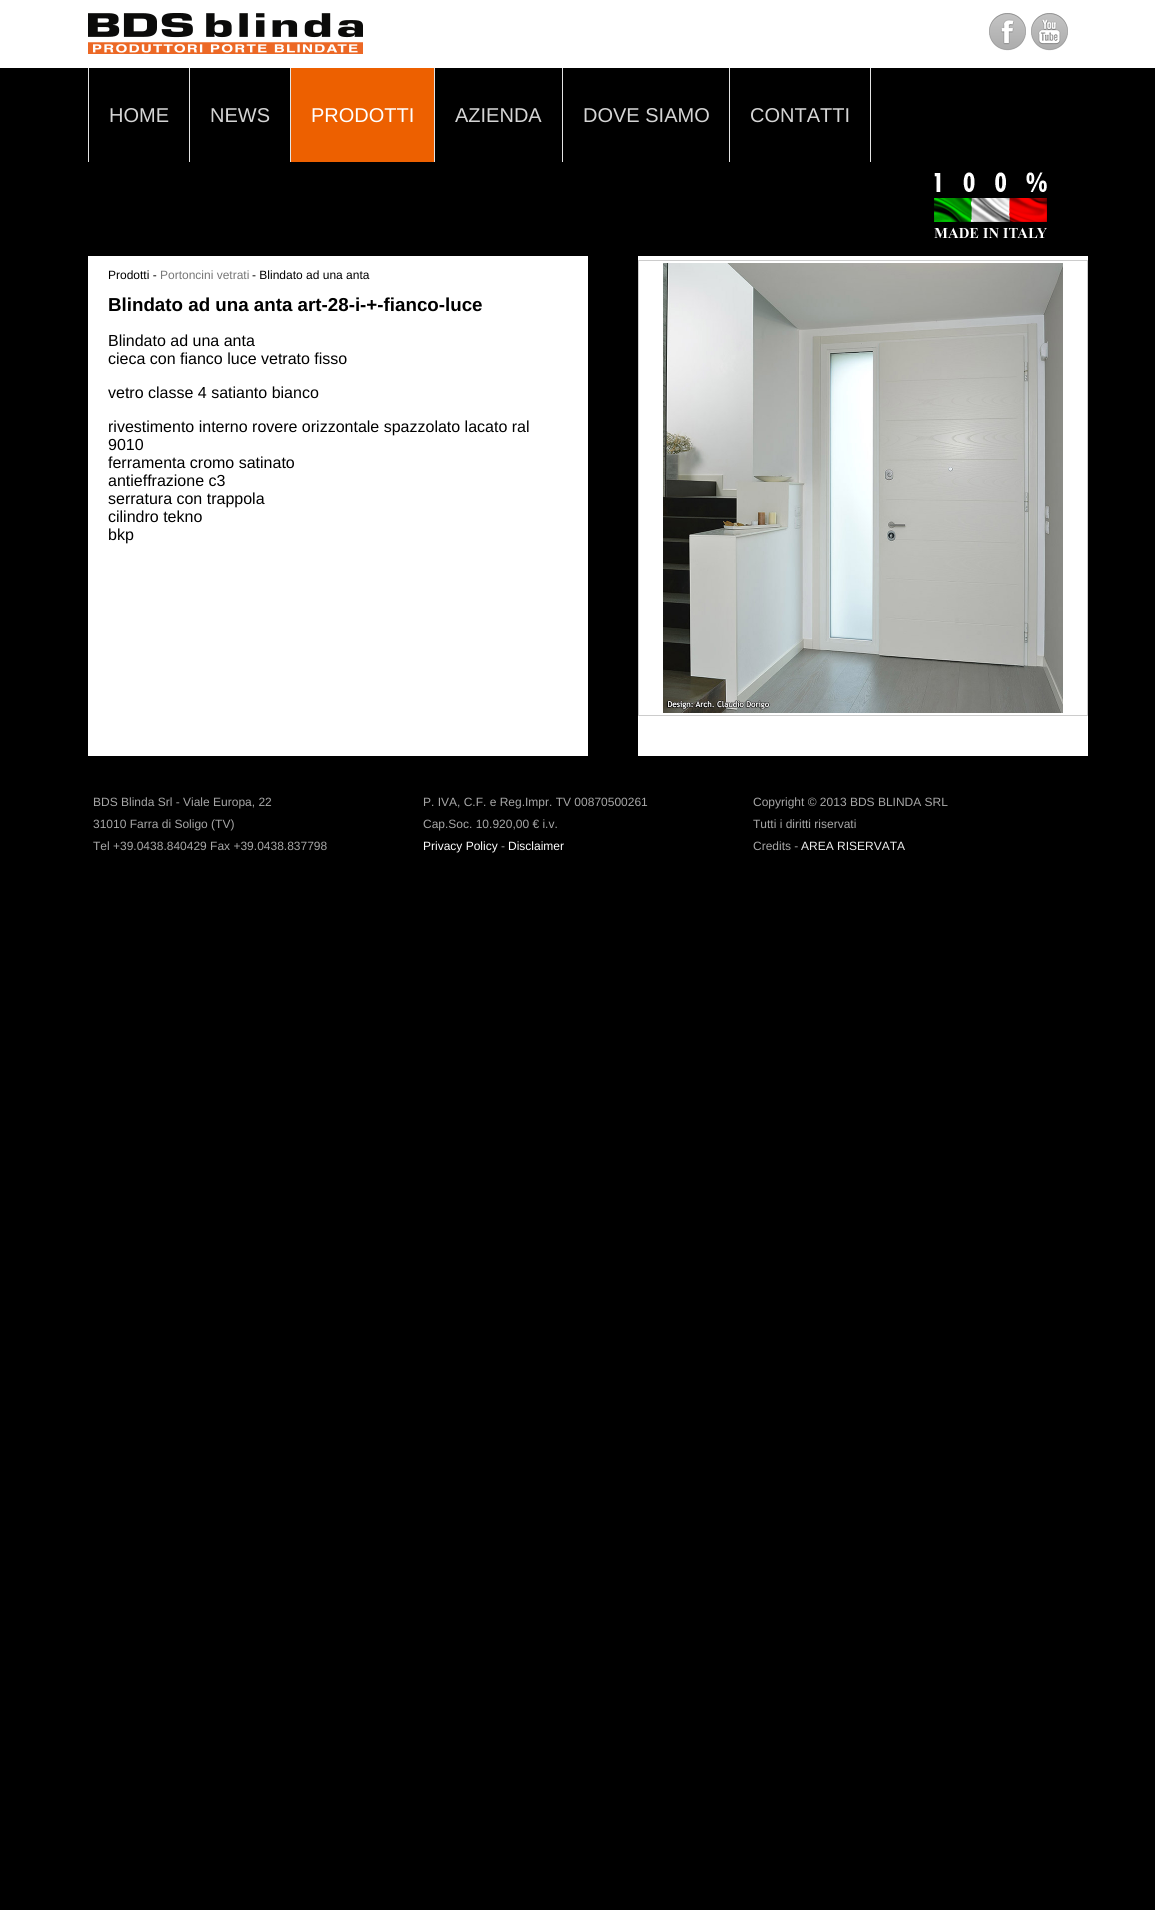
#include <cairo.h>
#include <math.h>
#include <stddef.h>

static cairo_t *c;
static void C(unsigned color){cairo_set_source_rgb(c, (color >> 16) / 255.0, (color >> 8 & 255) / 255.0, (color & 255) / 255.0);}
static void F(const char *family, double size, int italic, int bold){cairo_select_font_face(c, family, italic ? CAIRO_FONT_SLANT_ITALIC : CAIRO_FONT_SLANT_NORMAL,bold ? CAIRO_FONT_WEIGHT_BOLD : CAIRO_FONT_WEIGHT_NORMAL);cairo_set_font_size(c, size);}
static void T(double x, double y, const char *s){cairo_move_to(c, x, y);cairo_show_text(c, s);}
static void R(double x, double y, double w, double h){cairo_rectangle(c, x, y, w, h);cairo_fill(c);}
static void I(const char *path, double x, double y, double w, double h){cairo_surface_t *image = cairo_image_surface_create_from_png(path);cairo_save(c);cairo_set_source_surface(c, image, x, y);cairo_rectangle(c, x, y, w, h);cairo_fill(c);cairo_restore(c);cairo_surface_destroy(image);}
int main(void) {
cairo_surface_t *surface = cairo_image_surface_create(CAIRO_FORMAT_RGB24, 1155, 1910);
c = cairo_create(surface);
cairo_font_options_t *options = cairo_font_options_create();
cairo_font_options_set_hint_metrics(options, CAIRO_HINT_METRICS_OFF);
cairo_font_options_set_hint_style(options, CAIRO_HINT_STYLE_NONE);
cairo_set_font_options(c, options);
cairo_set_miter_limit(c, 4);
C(0x000000);
cairo_paint(c);
C(0xffffff);
R(0,0,1155,68);
I("1.png",88,13,275,41);
I("2.png",989,13,37,38);
I("3.png",1031,13,37,38);
C(0xe4e4e4);
R(189,68,1,94);
R(88,68,1,94);
F("Liberation Sans",20,0,0);
C(0xd5d5d5);
T(109,122,"HOME");
C(0xe4e4e4);
R(290,68,1,94);
C(0xd5d5d5);
T(210,122,"NEWS");
C(0xed6000);
R(291,68,143,94);
C(0xe4e4e4);
R(434,68,1,94);
C(0xffffff);
T(311,122,"PRODOTTI");
C(0xe4e4e4);
R(562,68,1,94);
C(0xd5d5d5);
T(455,122,"AZIENDA");
C(0xe4e4e4);
R(729,68,1,94);
C(0xd5d5d5);
T(583,122,"DOVE SIAMO");
C(0xe4e4e4);
R(870,68,1,94);
C(0xd5d5d5);
T(750,122,"CONTATTI");
I("4.png",934,172,113,67);
C(0xffffff);
R(88,256,500,500);
F("Liberation Sans",12,0,0);
C(0x000000);
T(108,279,"Prodotti -");
C(0x777777);
T(160,279,"Portoncini vetrati");
C(0x000000);
T(252,279,"- Blindato ad una anta");
F("Liberation Sans",18.75,0,1);
T(108,311,"Blindato ad una anta art-28-i-+-fianco-luce");
F("Liberation Sans",16,0,0);
T(108,346,"Blindato ad una anta");
T(108,364,"cieca con fianco luce vetrato fisso");
T(108,398,"vetro classe 4 satianto bianco");
T(108,432,"rivestimento interno rovere orizzontale spazzolato lacato ral");
T(108,450,"9010");
T(108,468,"ferramenta cromo satinato");
T(108,486,"antieffrazione c3");
T(108,504,"serratura con trappola");
T(108,522,"cilindro tekno");
T(108,540,"bkp");
C(0xffffff);
R(638,256,450,500);
cairo_rectangle(c,638.5,260.5,449,455);
C(0xcccccc);
cairo_set_line_width(c,1);
cairo_stroke(c);
I("5.png",663,263,400,450);
F("Liberation Sans",12,0,0);
C(0xa7a7a7);
T(93,806,"BDS Blinda Srl - Viale Europa, 22");
T(93,828,"31010 Farra di Soligo (TV)");
T(93,850,"Tel +39.0438.840429 Fax +39.0438.837798");
T(423,806,"P. IVA, C.F. e Reg.Impr. TV 00870500261");
T(423,828,"Cap.Soc. 10.920,00 € i.v.");
C(0xffffff);
T(423,850,"Privacy Policy");
C(0xa7a7a7);
T(501,850,"-");
C(0xffffff);
T(508,850,"Disclaimer");
C(0xa7a7a7);
T(753,806,"Copyright © 2013 BDS BLINDA SRL");
T(753,828,"Tutti i diritti riservati");
T(753,850,"Credits -");
C(0xeeeeee);
T(801,850,"AREA RISERVATA");
cairo_surface_write_to_png(surface, "o.png");
cairo_font_options_destroy(options);
cairo_destroy(c);
cairo_surface_destroy(surface);
return 0;
}
